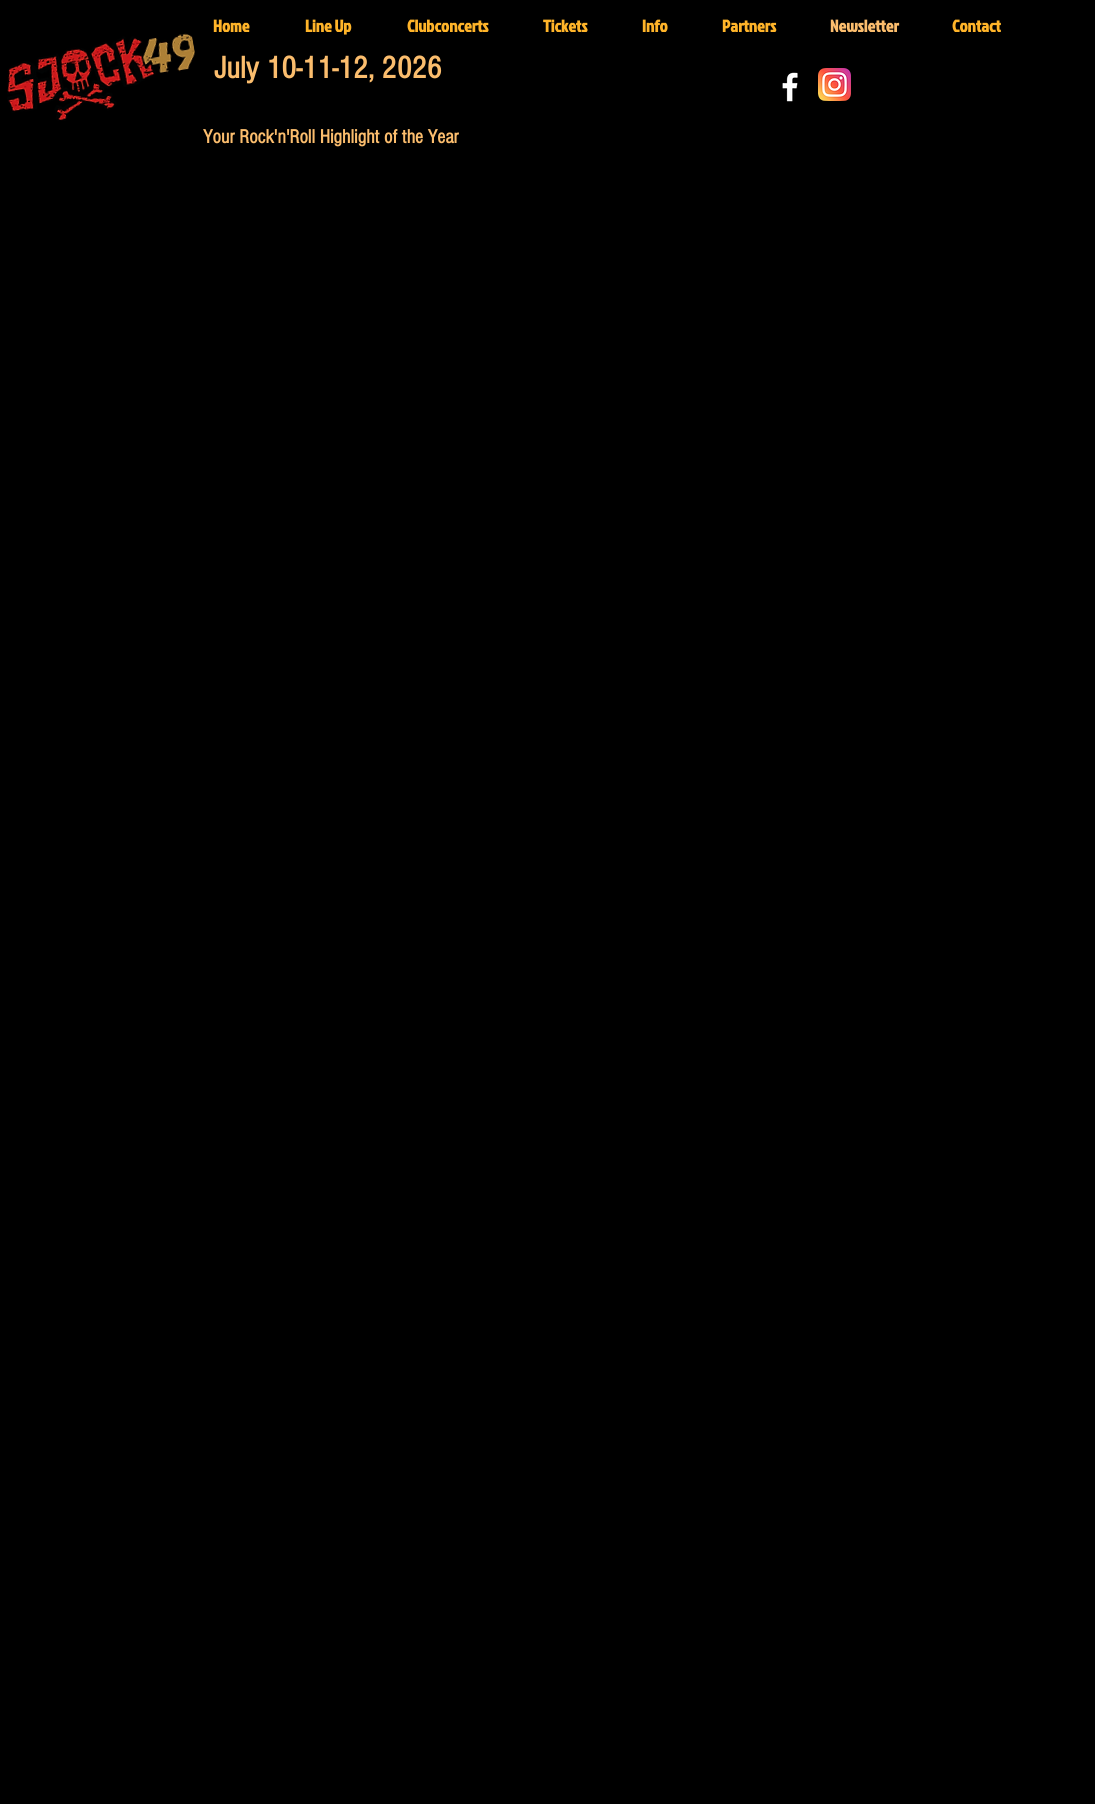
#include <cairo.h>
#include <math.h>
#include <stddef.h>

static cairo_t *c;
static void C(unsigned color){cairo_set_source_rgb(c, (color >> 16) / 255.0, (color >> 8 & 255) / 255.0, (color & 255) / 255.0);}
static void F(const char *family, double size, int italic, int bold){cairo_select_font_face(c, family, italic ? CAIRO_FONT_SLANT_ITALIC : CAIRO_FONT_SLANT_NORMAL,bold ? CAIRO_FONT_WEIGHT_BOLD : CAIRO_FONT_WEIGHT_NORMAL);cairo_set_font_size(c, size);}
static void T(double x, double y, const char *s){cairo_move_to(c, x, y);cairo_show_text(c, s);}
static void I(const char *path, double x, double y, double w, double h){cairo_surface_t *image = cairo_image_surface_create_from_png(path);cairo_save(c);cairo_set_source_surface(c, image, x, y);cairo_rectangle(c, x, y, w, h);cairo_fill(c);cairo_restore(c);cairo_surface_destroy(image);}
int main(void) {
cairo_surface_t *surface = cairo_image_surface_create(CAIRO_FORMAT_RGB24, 1095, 1804);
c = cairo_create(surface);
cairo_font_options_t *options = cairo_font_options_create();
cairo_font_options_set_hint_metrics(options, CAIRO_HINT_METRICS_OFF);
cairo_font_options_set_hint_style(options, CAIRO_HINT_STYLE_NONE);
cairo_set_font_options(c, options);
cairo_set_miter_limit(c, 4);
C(0x000000);
cairo_paint(c);
F("Jockey One",17,0,1);
C(0xffb429);
T(213,32,"Home");
T(305,32,"Line Up");
T(407,32,"Clubconcerts");
T(543,32,"Tickets");
T(642,32,"Info");
T(722,32,"Partners");
C(0xfbbd6d);
T(830,32,"Newsletter");
C(0xffb429);
T(952,32,"Contact");
I("1.png",7,33,188,88);
F("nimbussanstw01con",32,0,1);
C(0xfbbd6d);
T(214,78,"July 10-11-12, 2026");
I("2.png",782,72,16,30);
I("3.png",818,68,33,33);
F("nimbussanstw01con",20,0,1);
T(203,143,"Your Rock'n'Roll Highlight of the Year");
cairo_surface_write_to_png(surface, "o.png");
cairo_font_options_destroy(options);
cairo_destroy(c);
cairo_surface_destroy(surface);
return 0;
}
